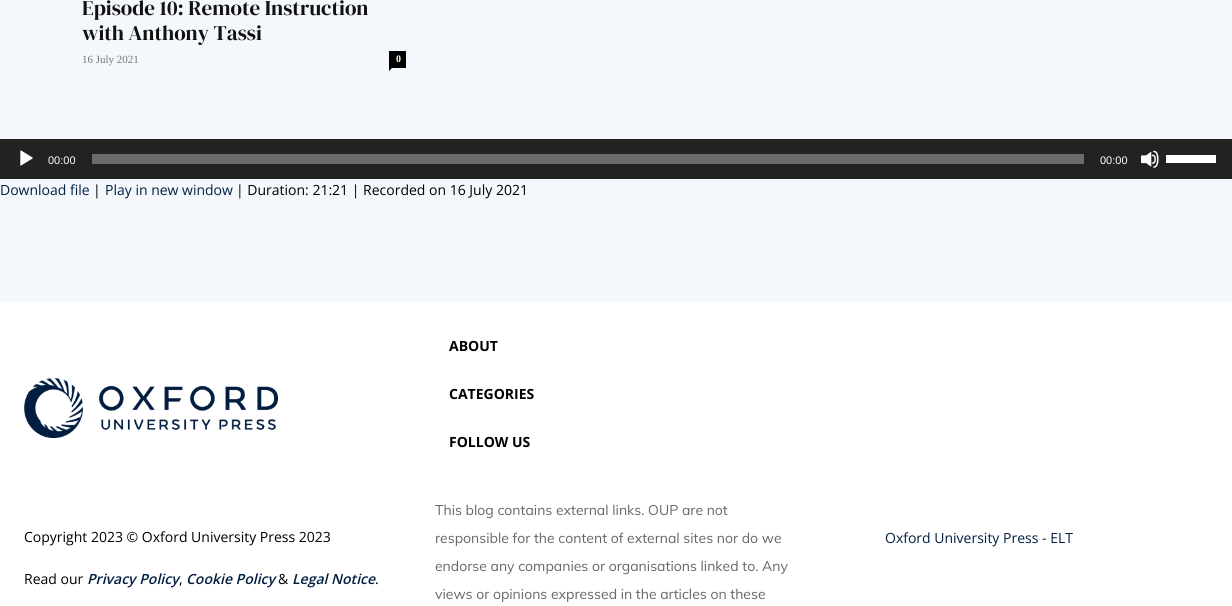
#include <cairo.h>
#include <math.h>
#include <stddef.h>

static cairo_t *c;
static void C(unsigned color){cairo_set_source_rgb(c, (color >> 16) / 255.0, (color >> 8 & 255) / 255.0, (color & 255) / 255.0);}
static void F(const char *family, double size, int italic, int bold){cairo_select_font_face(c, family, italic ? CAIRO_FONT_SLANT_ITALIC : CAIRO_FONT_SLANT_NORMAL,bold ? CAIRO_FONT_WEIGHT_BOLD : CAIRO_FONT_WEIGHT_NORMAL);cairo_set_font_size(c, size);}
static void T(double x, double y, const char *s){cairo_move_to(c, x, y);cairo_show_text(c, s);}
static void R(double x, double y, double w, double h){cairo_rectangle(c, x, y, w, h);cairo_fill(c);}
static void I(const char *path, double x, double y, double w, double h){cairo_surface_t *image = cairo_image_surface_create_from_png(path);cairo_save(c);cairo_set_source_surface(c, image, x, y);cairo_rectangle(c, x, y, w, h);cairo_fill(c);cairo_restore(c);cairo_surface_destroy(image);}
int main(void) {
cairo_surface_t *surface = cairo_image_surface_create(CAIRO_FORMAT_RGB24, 1232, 606);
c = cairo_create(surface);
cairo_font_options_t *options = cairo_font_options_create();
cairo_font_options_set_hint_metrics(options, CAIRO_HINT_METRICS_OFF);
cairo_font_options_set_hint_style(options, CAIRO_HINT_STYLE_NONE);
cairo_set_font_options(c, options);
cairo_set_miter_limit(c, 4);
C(0xf4f7fc);
cairo_paint(c);
F("DM Serif Display",21,0,0);
C(0x111111);
T(82,15,"Episode 10: Remote Instruction");
T(82,40,"with Anthony Tassi");
F("Liberation Serif",11,0,0);
C(0x767676);
T(82,63,"16 July 2021");
C(0x000000);
R(389,51,17,17);
F("Liberation Serif",10,0,1);
C(0xffffff);
T(396,62,"0");
C(0x000000);
cairo_new_path(c);
cairo_move_to(c,389,68);
cairo_line_to(c,392,68);
cairo_line_to(c,389,71);
cairo_close_path(c);
cairo_fill(c);
C(0x222222);
R(0,139,1232,40);
I("1.png",20,150,13,16);
F("Liberation Sans",11,0,0);
C(0xffffff);
T(48,164,"00:00");
C(0x6b6b6b);
R(92,154,992,10);
C(0xffffff);
T(1100,164,"00:00");
I("2.png",1141,150,18,18);
R(1166,155,50,8);
F("Open Sans",14,0,0);
C(0x011e41);
T(0,195,"Download file");
C(0x000000);
T(93,195,"|");
C(0x011e41);
T(105,195,"Play in new window");
C(0x000000);
T(236,195,"| Duration: 21:21 | Recorded on 16 July 2021");
C(0xffffff);
R(0,302,1232,304);
I("3.png",24,378,254,60);
C(0x000000);
T(24,542,"Copyright 2023 © Oxford University Press 2023");
T(24,584,"Read our");
F("Open Sans SemiBold",14,1,0);
C(0x011e41);
T(87,584,"Privacy Policy");
T(186,584,"Cookie Policy");
F("Open Sans",14,0,0);
C(0x000000);
T(278,584,"&");
F("Open Sans SemiBold",14,1,0);
C(0x011e41);
T(292,584,"Legal Notice");
F("Open Sans",14,0,0);
C(0x000000);
T(179,584,",");
T(375,584,".");
F("Open Sans",14,0,1);
T(449,351,"ABOUT");
T(449,399,"CATEGORIES");
T(449,447,"FOLLOW US");
F("Muli",14,0,0);
C(0x666666);
T(435,515,"This blog contains external links. OUP are not");
T(435,543,"responsible for the content of external sites nor do we");
T(435,571,"endorse any companies or organisations linked to. Any");
T(435,599,"views or opinions expressed in the articles on these");
F("Open Sans",14,0,0);
C(0x011e41);
T(885,543,"Oxford University Press - ELT");
cairo_surface_write_to_png(surface, "o.png");
cairo_font_options_destroy(options);
cairo_destroy(c);
cairo_surface_destroy(surface);
return 0;
}
